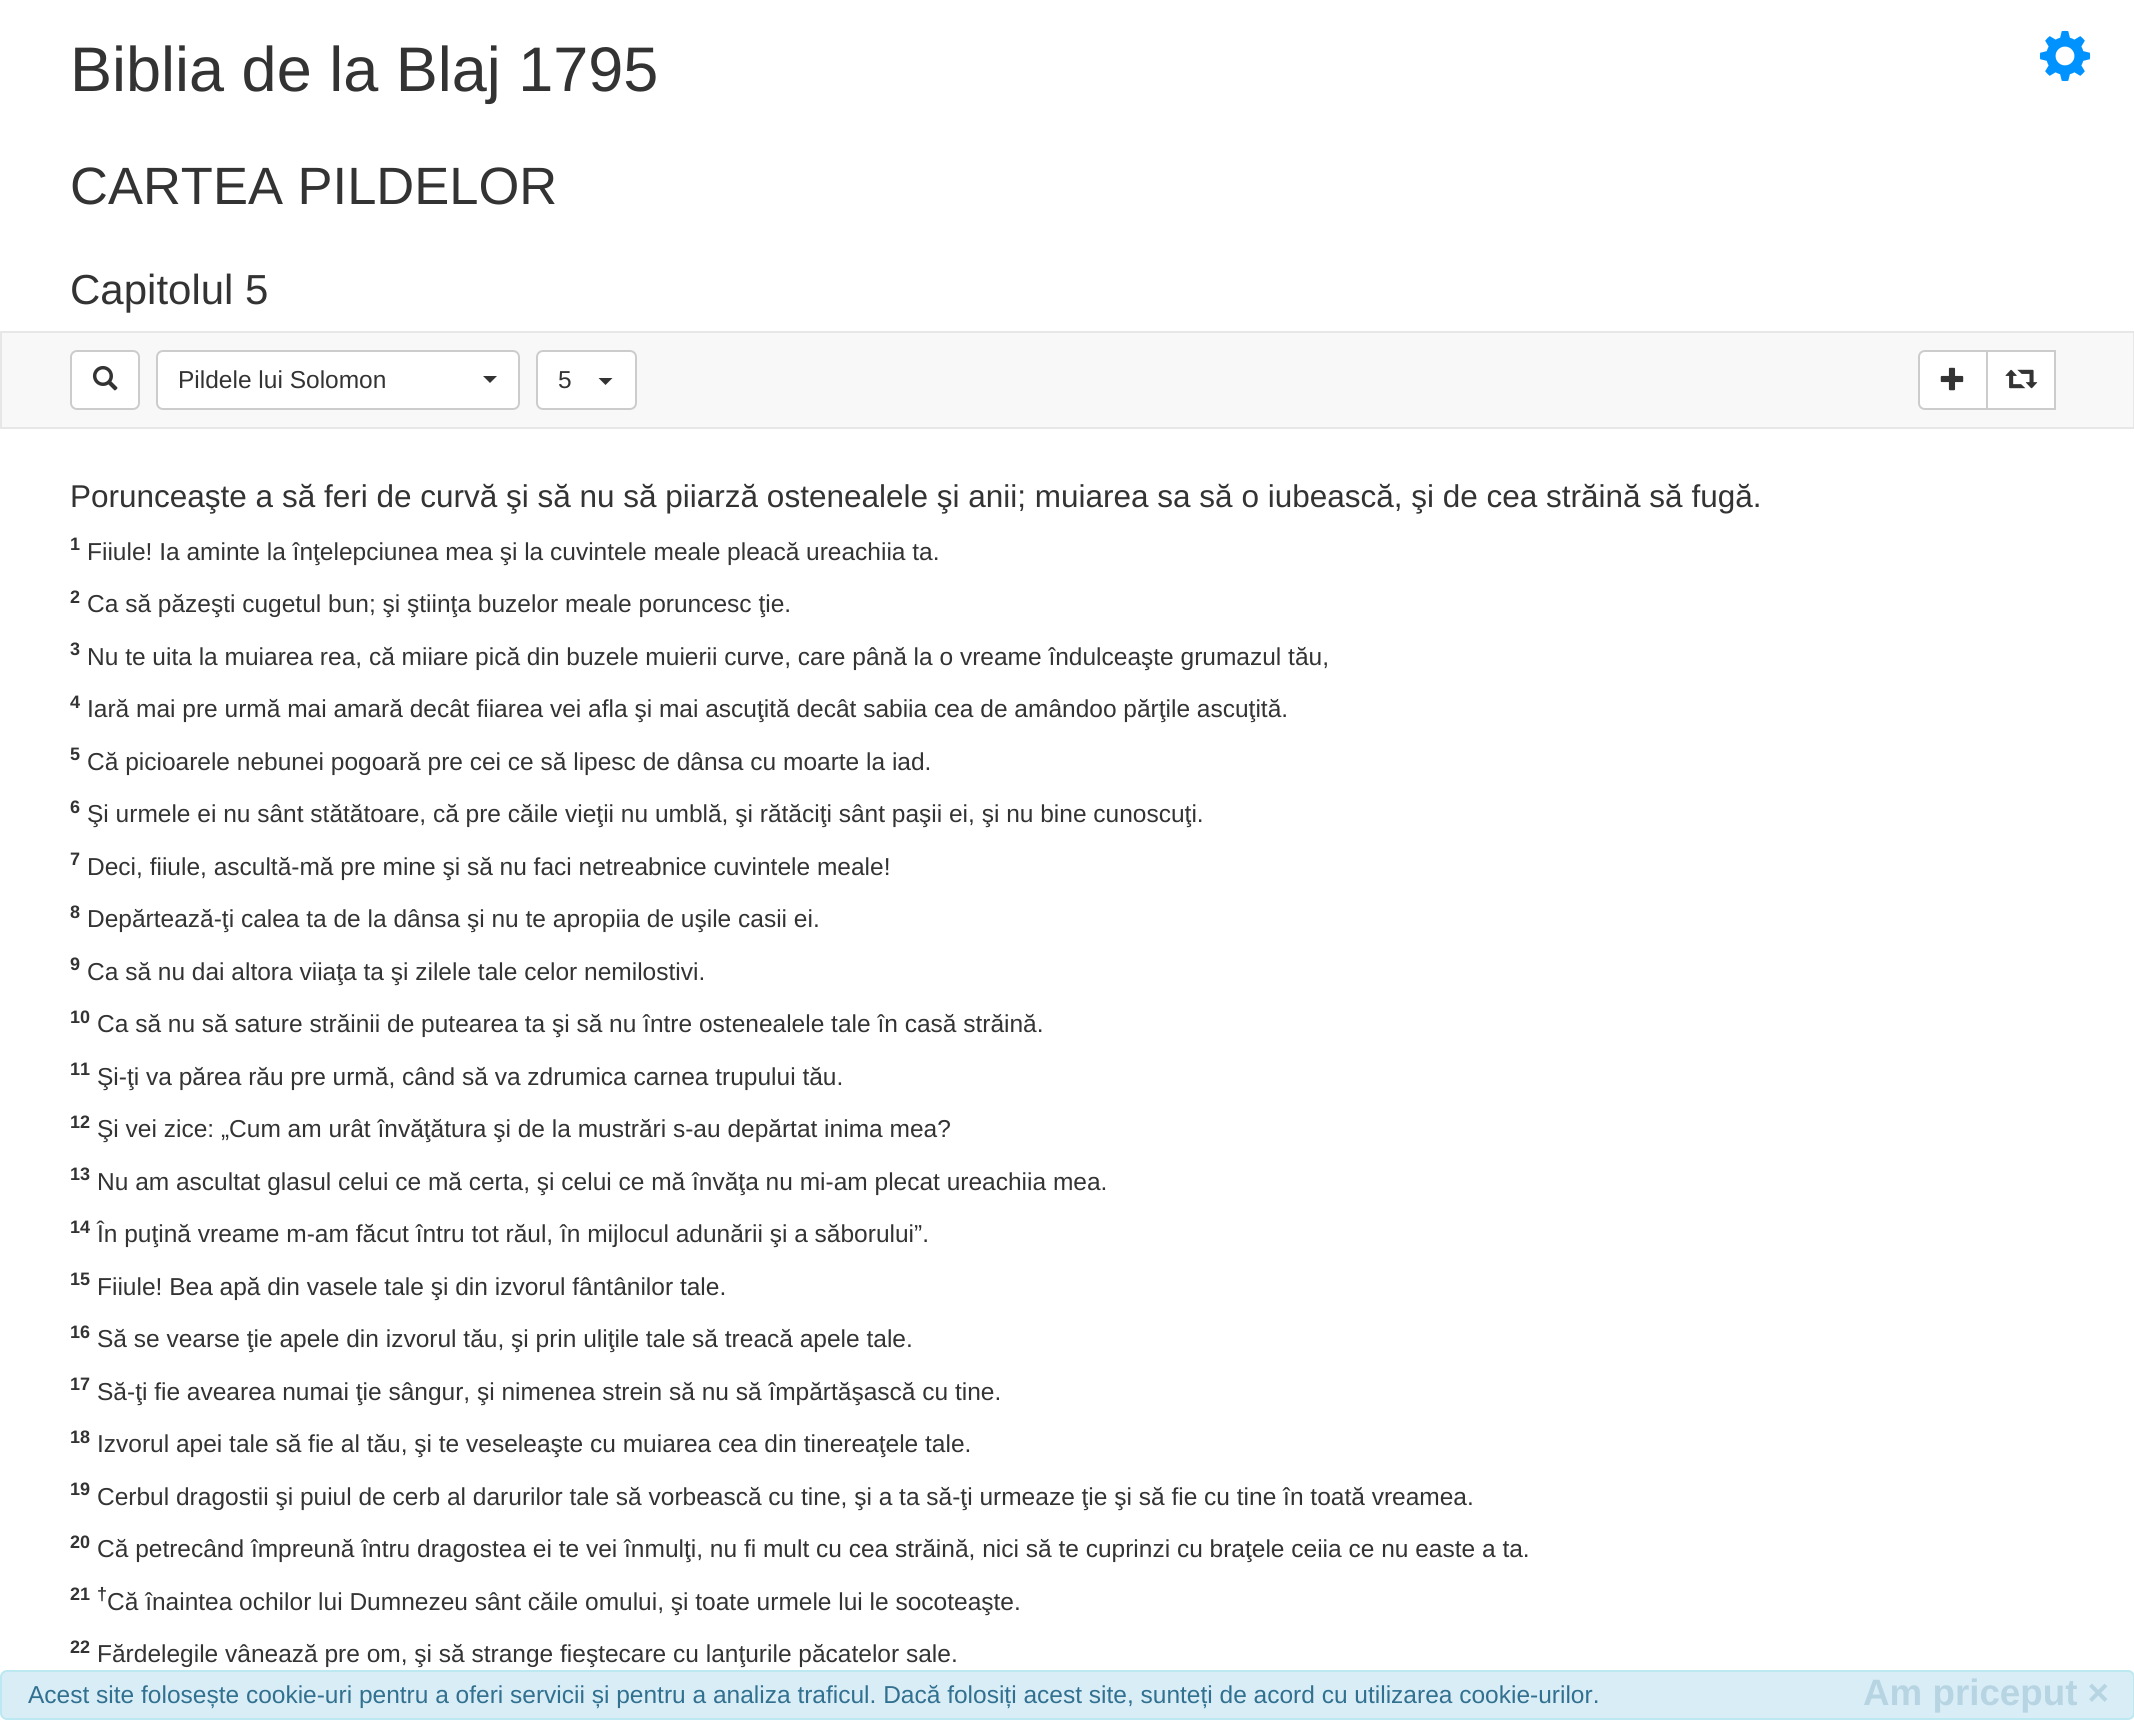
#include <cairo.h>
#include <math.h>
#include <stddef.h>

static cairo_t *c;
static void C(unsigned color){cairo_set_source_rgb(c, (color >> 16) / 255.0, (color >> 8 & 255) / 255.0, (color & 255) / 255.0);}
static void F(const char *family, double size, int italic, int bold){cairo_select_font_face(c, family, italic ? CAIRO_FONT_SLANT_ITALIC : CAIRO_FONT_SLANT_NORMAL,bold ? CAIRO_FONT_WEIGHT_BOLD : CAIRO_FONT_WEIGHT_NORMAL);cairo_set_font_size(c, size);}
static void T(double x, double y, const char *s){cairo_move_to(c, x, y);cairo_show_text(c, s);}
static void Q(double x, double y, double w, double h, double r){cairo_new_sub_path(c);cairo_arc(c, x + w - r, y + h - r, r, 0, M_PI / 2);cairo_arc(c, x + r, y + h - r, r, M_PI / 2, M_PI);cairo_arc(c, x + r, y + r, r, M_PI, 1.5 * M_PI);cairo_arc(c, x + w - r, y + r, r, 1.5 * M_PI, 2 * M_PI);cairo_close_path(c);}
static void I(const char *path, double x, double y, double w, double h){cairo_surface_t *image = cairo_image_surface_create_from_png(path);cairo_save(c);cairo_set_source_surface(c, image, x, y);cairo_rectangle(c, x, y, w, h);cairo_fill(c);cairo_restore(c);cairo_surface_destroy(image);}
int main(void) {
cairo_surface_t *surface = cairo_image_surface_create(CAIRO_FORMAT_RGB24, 2134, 1720);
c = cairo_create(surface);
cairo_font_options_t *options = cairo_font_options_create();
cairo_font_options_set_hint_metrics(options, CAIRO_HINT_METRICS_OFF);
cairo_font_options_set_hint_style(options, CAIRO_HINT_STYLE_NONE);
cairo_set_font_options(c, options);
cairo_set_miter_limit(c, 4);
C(0xffffff);
cairo_paint(c);
F("Liberation Sans",63,0,0);
C(0x333333);
T(70,91,"Biblia de la Blaj 1795");
F("Liberation Sans",52.5,0,0);
T(70,204,"CARTEA PILDELOR");
F("Liberation Sans",42,0,0);
T(70,304,"Capitolul 5");
I("1.png",2039,30,52,52);
C(0xf8f8f8);
cairo_rectangle(c,1,332,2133,96);
cairo_fill_preserve(c);
C(0xe7e7e7);
cairo_stroke(c);
C(0xffffff);
Q(71,351,68,58,6);
cairo_fill_preserve(c);
C(0xcccccc);
cairo_stroke(c);
I("2.png",92,365,26,26);
C(0xffffff);
Q(157,351,362,58,6);
cairo_fill_preserve(c);
C(0xcccccc);
cairo_stroke(c);
F("Liberation Sans",24.5,0,0);
C(0x333333);
T(178,388,"Pildele lui Solomon");
cairo_new_path(c);
cairo_move_to(c,483,376);
cairo_line_to(c,497,376);
cairo_line_to(c,490,383);
cairo_close_path(c);
cairo_fill(c);
C(0xffffff);
Q(537,351,99,58,6);
cairo_fill_preserve(c);
C(0xcccccc);
cairo_stroke(c);
C(0x333333);
T(558,388,"5");
cairo_new_path(c);
cairo_move_to(c,598.5,378);
cairo_line_to(c,612.5,378);
cairo_line_to(c,605.5,385);
cairo_close_path(c);
cairo_fill(c);
C(0xffffff);
cairo_new_path(c);
cairo_move_to(c,1925,351);
cairo_line_to(c,1987,351);
cairo_line_to(c,1987,409);
cairo_line_to(c,1925,409);
cairo_curve_to(c,1921.5,409,1919,406.5,1919,403);
cairo_line_to(c,1919,357);
cairo_curve_to(c,1919,353.5,1921.5,351,1925,351);
cairo_close_path(c);
cairo_fill_preserve(c);
C(0xcccccc);
cairo_stroke(c);
I("3.png",1940,367,24,24);
C(0xffffff);
cairo_rectangle(c,1987,351,68,58);
cairo_fill_preserve(c);
C(0xcccccc);
cairo_stroke(c);
I("4.png",2005,369,33,20);
F("Liberation Sans",31.5,0,0);
C(0x333333);
T(70,507,"Porunceaşte a să feri de curvă şi să nu să piiarză ostenealele şi anii; muiarea sa să o iubească, şi de cea străină să fugă.");
F("Liberation Sans",18,0,1);
T(70,550,"1");
F("Liberation Sans",24.5,0,0);
T(87,560,"Fiiule! Ia aminte la înţelepciunea mea şi la cuvintele meale pleacă ureachiia ta.");
F("Liberation Sans",18,0,1);
T(70,603,"2");
F("Liberation Sans",24.5,0,0);
T(87,612,"Ca să păzeşti cugetul bun; şi ştiinţa buzelor meale poruncesc ţie.");
F("Liberation Sans",18,0,1);
T(70,655,"3");
F("Liberation Sans",24.5,0,0);
T(87,665,"Nu te uita la muiarea rea, că miiare pică din buzele muierii curve, care până la o vreame îndulceaşte grumazul tău,");
F("Liberation Sans",18,0,1);
T(70,708,"4");
F("Liberation Sans",24.5,0,0);
T(87,717,"Iară mai pre urmă mai amară decât fiiarea vei afla şi mai ascuţită decât sabiia cea de amândoo părţile ascuţită.");
F("Liberation Sans",18,0,1);
T(70,760,"5");
F("Liberation Sans",24.5,0,0);
T(87,770,"Că picioarele nebunei pogoară pre cei ce să lipesc de dânsa cu moarte la iad.");
F("Liberation Sans",18,0,1);
T(70,813,"6");
F("Liberation Sans",24.5,0,0);
T(87,822,"Şi urmele ei nu sânt stătătoare, că pre căile vieţii nu umblă, şi rătăciţi sânt paşii ei, şi nu bine cunoscuţi.");
F("Liberation Sans",18,0,1);
T(70,865,"7");
F("Liberation Sans",24.5,0,0);
T(87,875,"Deci, fiiule, ascultă-mă pre mine şi să nu faci netreabnice cuvintele meale!");
F("Liberation Sans",18,0,1);
T(70,918,"8");
F("Liberation Sans",24.5,0,0);
T(87,927,"Depărtează-ţi calea ta de la dânsa şi nu te apropiia de uşile casii ei.");
F("Liberation Sans",18,0,1);
T(70,970,"9");
F("Liberation Sans",24.5,0,0);
T(87,980,"Ca să nu dai altora viiaţa ta şi zilele tale celor nemilostivi.");
F("Liberation Sans",18,0,1);
T(70,1023,"10");
F("Liberation Sans",24.5,0,0);
T(97,1032,"Ca să nu să sature străinii de putearea ta şi să nu între ostenealele tale în casă străină.");
F("Liberation Sans",18,0,1);
T(70,1075,"11");
F("Liberation Sans",24.5,0,0);
T(97,1085,"Şi-ţi va părea rău pre urmă, când să va zdrumica carnea trupului tău.");
F("Liberation Sans",18,0,1);
T(70,1128,"12");
F("Liberation Sans",24.5,0,0);
T(97,1137,"Şi vei zice: „Cum am urât învăţătura şi de la mustrări s-au depărtat inima mea?");
F("Liberation Sans",18,0,1);
T(70,1180,"13");
F("Liberation Sans",24.5,0,0);
T(97,1190,"Nu am ascultat glasul celui ce mă certa, şi celui ce mă învăţa nu mi-am plecat ureachiia mea.");
F("Liberation Sans",18,0,1);
T(70,1233,"14");
F("Liberation Sans",24.5,0,0);
T(97,1242,"În puţină vreame m-am făcut întru tot răul, în mijlocul adunării şi a săborului”.");
F("Liberation Sans",18,0,1);
T(70,1285,"15");
F("Liberation Sans",24.5,0,0);
T(97,1295,"Fiiule! Bea apă din vasele tale şi din izvorul fântânilor tale.");
F("Liberation Sans",18,0,1);
T(70,1338,"16");
F("Liberation Sans",24.5,0,0);
T(97,1347,"Să se vearse ţie apele din izvorul tău, şi prin uliţile tale să treacă apele tale.");
F("Liberation Sans",18,0,1);
T(70,1390,"17");
F("Liberation Sans",24.5,0,0);
T(97,1400,"Să-ţi fie avearea numai ţie sângur, şi nimenea strein să nu să împărtăşască cu tine.");
F("Liberation Sans",18,0,1);
T(70,1443,"18");
F("Liberation Sans",24.5,0,0);
T(97,1452,"Izvorul apei tale să fie al tău, şi te veseleaşte cu muiarea cea din tinereaţele tale.");
F("Liberation Sans",18,0,1);
T(70,1495,"19");
F("Liberation Sans",24.5,0,0);
T(97,1505,"Cerbul dragostii şi puiul de cerb al darurilor tale să vorbească cu tine, şi a ta să-ţi urmeaze ţie şi să fie cu tine în toată vreamea.");
F("Liberation Sans",18,0,1);
T(70,1548,"20");
F("Liberation Sans",24.5,0,0);
T(97,1557,"Că petrecând împreună întru dragostea ei te vei înmulţi, nu fi mult cu cea străină, nici să te cuprinzi cu braţele ceiia ce nu easte a ta.");
F("Liberation Sans",18,0,1);
T(70,1600,"21");
T(97,1600,"†");
F("Liberation Sans",24.5,0,0);
T(107,1610,"Că înaintea ochilor lui Dumnezeu sânt căile omului, şi toate urmele lui le socoteaşte.");
F("Liberation Sans",18,0,1);
T(70,1653,"22");
F("Liberation Sans",24.5,0,0);
T(97,1662,"Fărdelegile vânează pre om, şi să strange fieştecare cu lanţurile păcatelor sale.");
C(0xd9edf7);
Q(1,1671,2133,48,6);
cairo_fill_preserve(c);
C(0xbce8f1);
cairo_stroke(c);
C(0x31708f);
T(28,1703,"Acest site folosește cookie-uri pentru a oferi servicii și pentru a analiza traficul. Dacă folosiți acest site, sunteți de acord cu utilizarea cookie-urilor.");
F("Liberation Sans",36.75,0,1);
C(0xb7d4e2);
T(1863,1705,"Am priceput ×");
cairo_surface_write_to_png(surface, "o.png");
cairo_font_options_destroy(options);
cairo_destroy(c);
cairo_surface_destroy(surface);
return 0;
}
